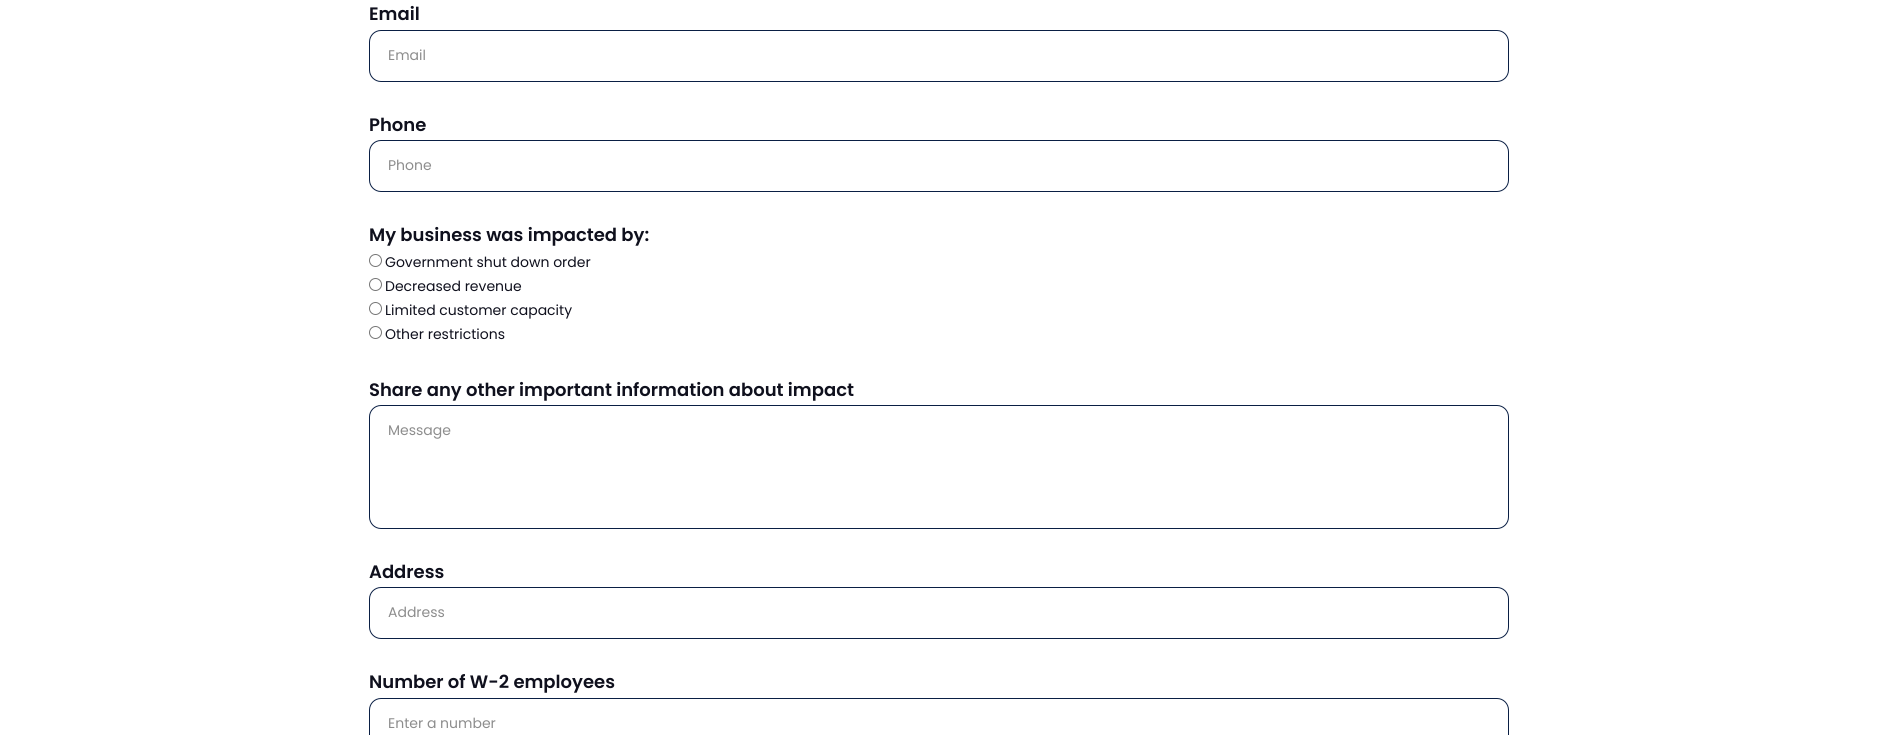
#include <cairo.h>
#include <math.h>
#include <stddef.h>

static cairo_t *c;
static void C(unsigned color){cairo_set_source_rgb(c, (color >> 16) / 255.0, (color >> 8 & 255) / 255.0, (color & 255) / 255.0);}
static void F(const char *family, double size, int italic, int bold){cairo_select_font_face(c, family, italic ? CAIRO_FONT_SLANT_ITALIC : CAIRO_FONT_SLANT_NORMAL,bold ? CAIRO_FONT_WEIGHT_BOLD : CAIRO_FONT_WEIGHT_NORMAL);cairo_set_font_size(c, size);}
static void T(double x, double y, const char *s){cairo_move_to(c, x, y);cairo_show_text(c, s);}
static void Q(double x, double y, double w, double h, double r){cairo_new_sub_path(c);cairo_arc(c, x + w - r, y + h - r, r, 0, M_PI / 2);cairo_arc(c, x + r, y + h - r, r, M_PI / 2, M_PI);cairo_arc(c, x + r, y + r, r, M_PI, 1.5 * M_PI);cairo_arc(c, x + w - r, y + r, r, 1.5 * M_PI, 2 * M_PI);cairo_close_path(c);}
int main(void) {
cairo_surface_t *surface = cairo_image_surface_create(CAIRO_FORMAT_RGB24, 1877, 735);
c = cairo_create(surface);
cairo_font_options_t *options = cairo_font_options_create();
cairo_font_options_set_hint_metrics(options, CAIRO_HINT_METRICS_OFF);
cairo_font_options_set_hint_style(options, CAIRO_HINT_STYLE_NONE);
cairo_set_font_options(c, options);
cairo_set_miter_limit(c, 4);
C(0xffffff);
cairo_paint(c);
F("Poppins SemiBold",18,0,0);
C(0x0f101d);
T(369,20,"Email");
Q(369.5,30.5,1139,51,11.5);
C(0x0a1f44);
cairo_set_line_width(c,1);
cairo_stroke(c);
F("Poppins",14,0,0);
C(0x8d8d8d);
T(388,60,"Email");
F("Poppins SemiBold",18,0,0);
C(0x0f101d);
T(369,131,"Phone");
Q(369.5,140.5,1139,51,11.5);
C(0x0a1f44);
cairo_stroke(c);
F("Poppins",14,0,0);
C(0x8d8d8d);
T(388,170,"Phone");
F("Poppins SemiBold",18,0,0);
C(0x0f101d);
T(369,241,"My business was impacted by:");
cairo_new_path(c);
cairo_arc(c,375.5,260.5,6,0,2 * M_PI);
C(0x767676);
cairo_stroke(c);
F("Poppins",14,0,0);
C(0x0f101d);
T(385,267,"Government shut down order");
cairo_new_path(c);
cairo_arc(c,375.5,284.5,6,0,2 * M_PI);
C(0x767676);
cairo_stroke(c);
C(0x0f101d);
T(385,291,"Decreased revenue");
cairo_new_path(c);
cairo_arc(c,375.5,308.5,6,0,2 * M_PI);
C(0x767676);
cairo_stroke(c);
C(0x0f101d);
T(385,315,"Limited customer capacity");
cairo_new_path(c);
cairo_arc(c,375.5,332.5,6,0,2 * M_PI);
C(0x767676);
cairo_stroke(c);
C(0x0f101d);
T(385,339,"Other restrictions");
F("Poppins SemiBold",18,0,0);
T(369,396,"Share any other important information about impact");
Q(369.5,405.5,1139,123,11.5);
C(0x0a1f44);
cairo_stroke(c);
F("Poppins",14,0,0);
C(0x8d8d8d);
T(388,435,"Message");
F("Poppins SemiBold",18,0,0);
C(0x0f101d);
T(369,578,"Address");
Q(369.5,587.5,1139,51,11.5);
C(0x0a1f44);
cairo_stroke(c);
F("Poppins",14,0,0);
C(0x8d8d8d);
T(388,617,"Address");
F("Poppins SemiBold",18,0,0);
C(0x0f101d);
T(369,688,"Number of W-2 employees");
Q(369.5,698.5,1139,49,11.5);
C(0x0a1f44);
cairo_stroke(c);
F("Poppins",14,0,0);
C(0x8d8d8d);
T(388,728,"Enter a number");
cairo_surface_write_to_png(surface, "o.png");
cairo_font_options_destroy(options);
cairo_destroy(c);
cairo_surface_destroy(surface);
return 0;
}
